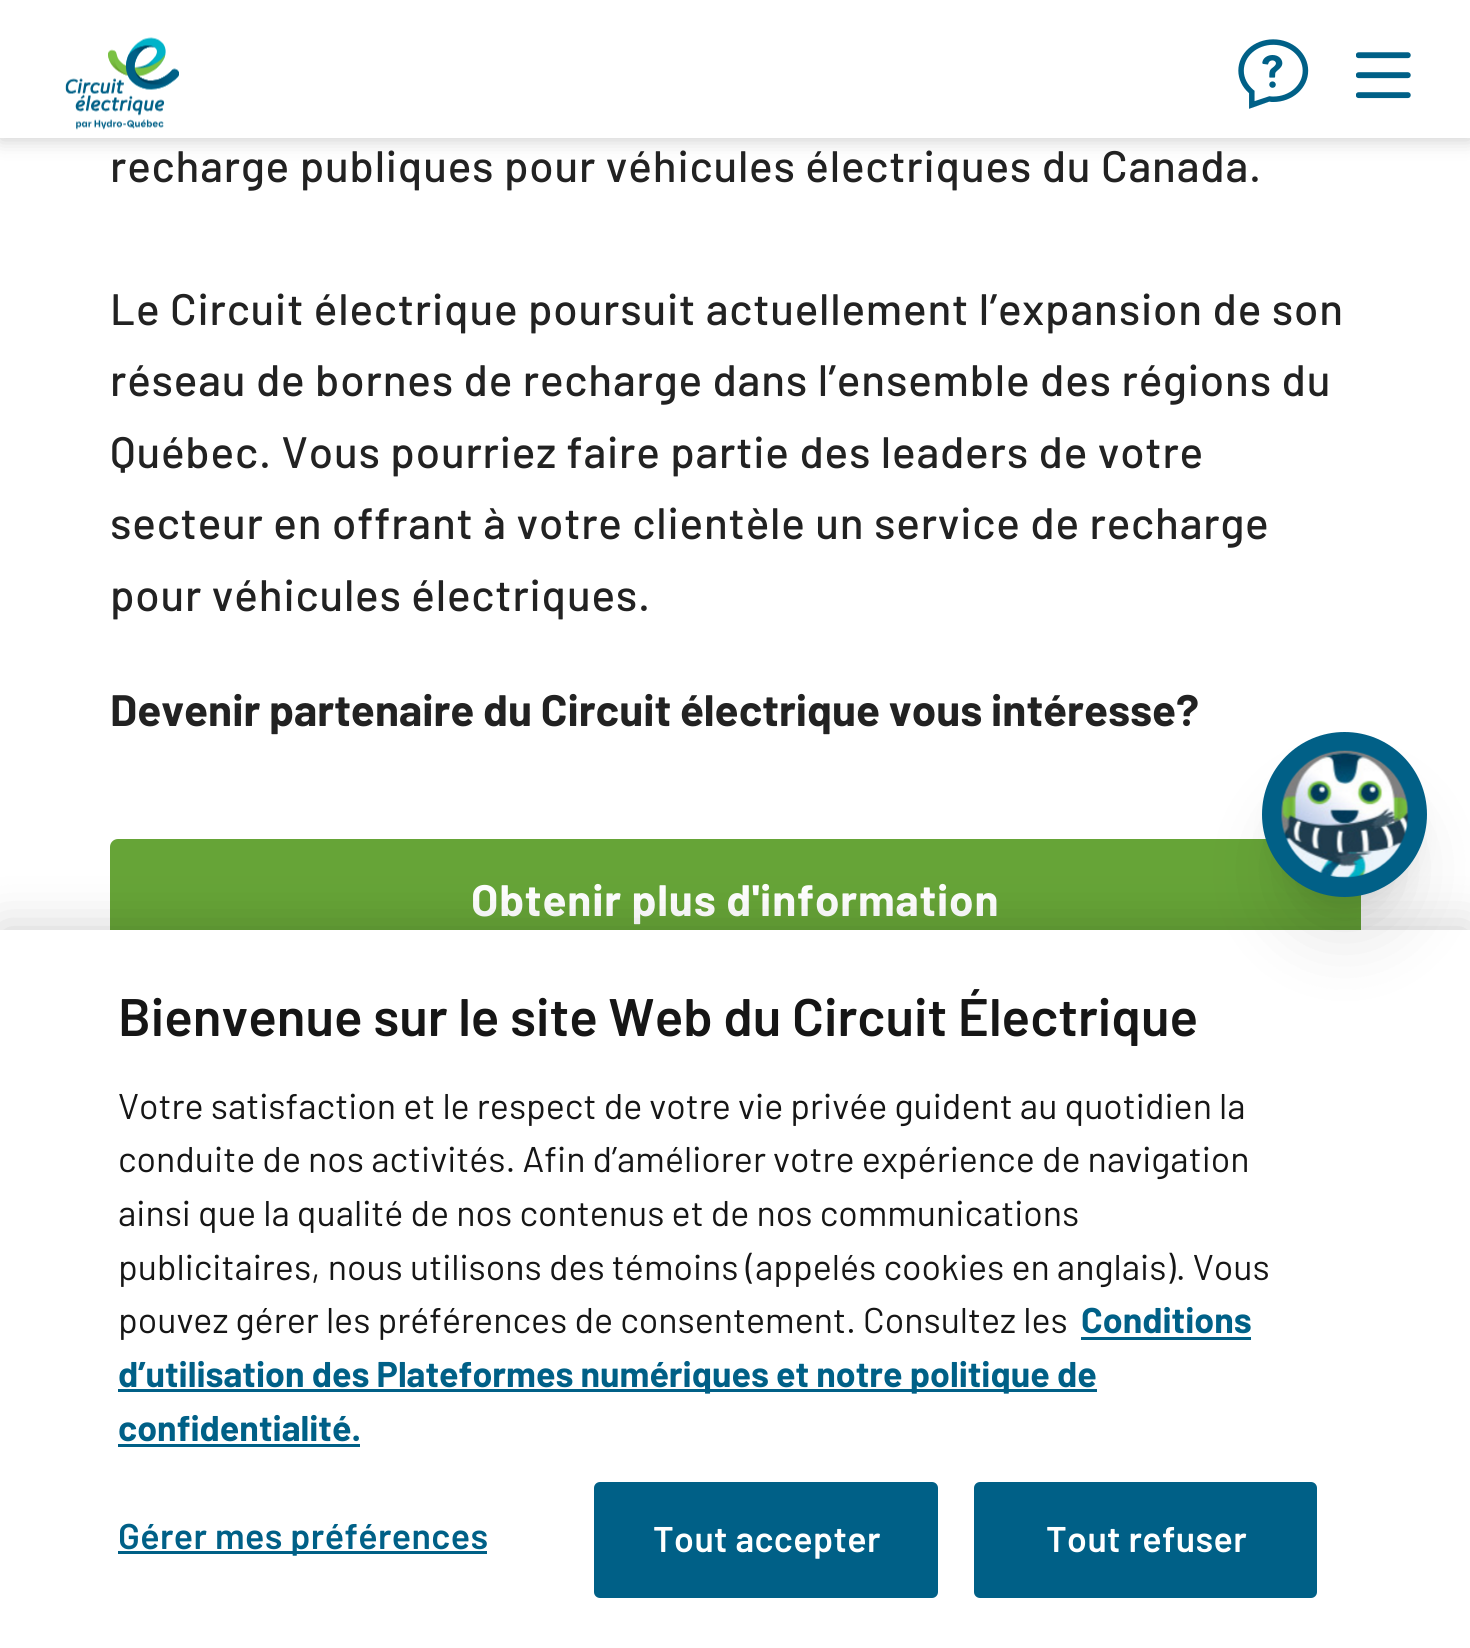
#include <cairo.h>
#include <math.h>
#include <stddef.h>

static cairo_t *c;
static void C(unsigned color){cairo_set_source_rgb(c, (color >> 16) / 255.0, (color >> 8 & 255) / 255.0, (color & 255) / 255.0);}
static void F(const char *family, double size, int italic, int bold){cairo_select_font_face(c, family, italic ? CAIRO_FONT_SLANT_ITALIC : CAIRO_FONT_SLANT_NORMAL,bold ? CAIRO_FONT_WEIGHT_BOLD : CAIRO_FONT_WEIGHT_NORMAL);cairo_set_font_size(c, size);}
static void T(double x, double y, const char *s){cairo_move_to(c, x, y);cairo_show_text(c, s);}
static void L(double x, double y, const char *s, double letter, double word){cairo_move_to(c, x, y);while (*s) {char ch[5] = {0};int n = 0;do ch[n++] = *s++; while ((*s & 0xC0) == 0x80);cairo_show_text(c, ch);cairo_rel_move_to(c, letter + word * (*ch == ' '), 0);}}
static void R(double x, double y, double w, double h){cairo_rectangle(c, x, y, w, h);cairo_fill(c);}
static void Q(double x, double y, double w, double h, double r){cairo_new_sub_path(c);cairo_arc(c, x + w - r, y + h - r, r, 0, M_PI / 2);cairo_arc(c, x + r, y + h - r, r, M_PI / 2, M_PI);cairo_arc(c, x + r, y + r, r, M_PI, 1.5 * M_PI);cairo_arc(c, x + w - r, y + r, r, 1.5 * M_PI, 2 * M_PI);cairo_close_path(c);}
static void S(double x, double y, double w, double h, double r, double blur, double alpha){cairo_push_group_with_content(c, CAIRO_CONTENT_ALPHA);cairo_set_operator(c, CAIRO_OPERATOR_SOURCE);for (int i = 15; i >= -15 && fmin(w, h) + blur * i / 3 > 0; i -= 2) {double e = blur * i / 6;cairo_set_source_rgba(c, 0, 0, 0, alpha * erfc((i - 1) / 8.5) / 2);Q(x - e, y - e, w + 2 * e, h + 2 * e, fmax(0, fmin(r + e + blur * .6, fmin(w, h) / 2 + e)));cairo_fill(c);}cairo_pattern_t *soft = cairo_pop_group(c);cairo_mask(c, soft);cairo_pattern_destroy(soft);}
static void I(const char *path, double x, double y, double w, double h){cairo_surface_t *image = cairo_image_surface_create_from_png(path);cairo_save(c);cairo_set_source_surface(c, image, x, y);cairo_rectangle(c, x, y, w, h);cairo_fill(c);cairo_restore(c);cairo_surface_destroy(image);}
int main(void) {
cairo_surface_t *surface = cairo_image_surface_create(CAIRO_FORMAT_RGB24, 1470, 1648);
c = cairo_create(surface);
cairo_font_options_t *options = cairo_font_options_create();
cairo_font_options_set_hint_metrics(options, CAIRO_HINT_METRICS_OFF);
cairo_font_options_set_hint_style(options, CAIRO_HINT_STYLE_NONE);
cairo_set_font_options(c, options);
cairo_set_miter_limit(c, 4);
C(0xffffff);
cairo_paint(c);
C(0x000000);
S(0,3,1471,137,0,9.5,.2);
C(0xffffff);
R(0,0,1470,138);
I("1.png",65,37,114,93);
I("2.png",1238,39,71,70);
I("3.png",1356,52,55,47);
F("Barlow Medium",44,0,0);
C(0x222222);
L(110,182,"recharge publiques pour véhicules électriques du Canada.",.82,0);
L(110,325,"Le Circuit électrique poursuit actuellement l’expansion de son",.82,0);
L(110,396,"réseau de bornes de recharge dans l’ensemble des régions du",.82,0);
L(110,468,"Québec. Vous pourriez faire partie des leaders de votre",.82,0);
L(110,539,"secteur en offrant à votre clientèle un service de recharge",.82,0);
L(110,611,"pour véhicules électriques.",.82,0);
F("Barlow",44,0,1);
T(110,726,"Devenir partenaire du Circuit électrique vous intéresse?");
C(0x66a437);
Q(110,839,1251,118,8);
cairo_fill(c);
C(0xffffff);
L(471,916,"Obtenir plus d'information",.82,0);
C(0x000000);
S(0,930,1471,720,0,25,.2);
C(0xffffff);
R(0,930,1470,718);
C(0x000000);
S(1279,770,132,132,66,14,.1);
S(1276,800,138,138,69,34.5,.1);
C(0x016087);
cairo_arc(c,1344.5,814.5,82.5,0,2 * M_PI);
cairo_fill(c);
I("4.png",1281,750,128,128);
F("Barlow SemiBold",52.8,0,0);
C(0x161616);
T(118,1036,"Bienvenue sur le site Web du Circuit Électrique");
F("Barlow",35.75,0,0);
T(118,1119,"Votre satisfaction et le respect de votre vie privée guident au quotidien la");
T(118,1172,"conduite de nos activités. Afin d’améliorer votre expérience de navigation");
T(118,1226,"ainsi que la qualité de nos contenus et de nos communications");
T(118,1280,"publicitaires, nous utilisons des témoins (appelés cookies en anglais). Vous");
T(118,1333,"pouvez gérer les préférences de consentement.");
T(863,1333,"Consultez les");
F("Barlow",35.75,0,1);
C(0x006087);
T(1081,1333,"Conditions");
R(1081,1337,170,3);
R(118,1389,979,3);
T(118,1387,"d’utilisation des Plateformes numériques et notre politique de");
T(118,1441,"confidentialité.");
R(118,1444,242,3);
R(118,1551,369,3);
F("Barlow SemiBold",35.75,0,0);
L(118,1549,"Gérer mes préférences",.4,0);
Q(595.5,1483.5,341,113,4.5);
cairo_fill_preserve(c);
cairo_set_line_width(c,3);
cairo_stroke(c);
C(0xffffff);
L(653,1552,"Tout accepter",.4,0);
C(0x006087);
Q(975.5,1483.5,340,113,4.5);
cairo_fill_preserve(c);
cairo_stroke(c);
C(0xffffff);
L(1046,1552,"Tout refuser",.4,0);
cairo_surface_write_to_png(surface, "o.png");
cairo_font_options_destroy(options);
cairo_destroy(c);
cairo_surface_destroy(surface);
return 0;
}
